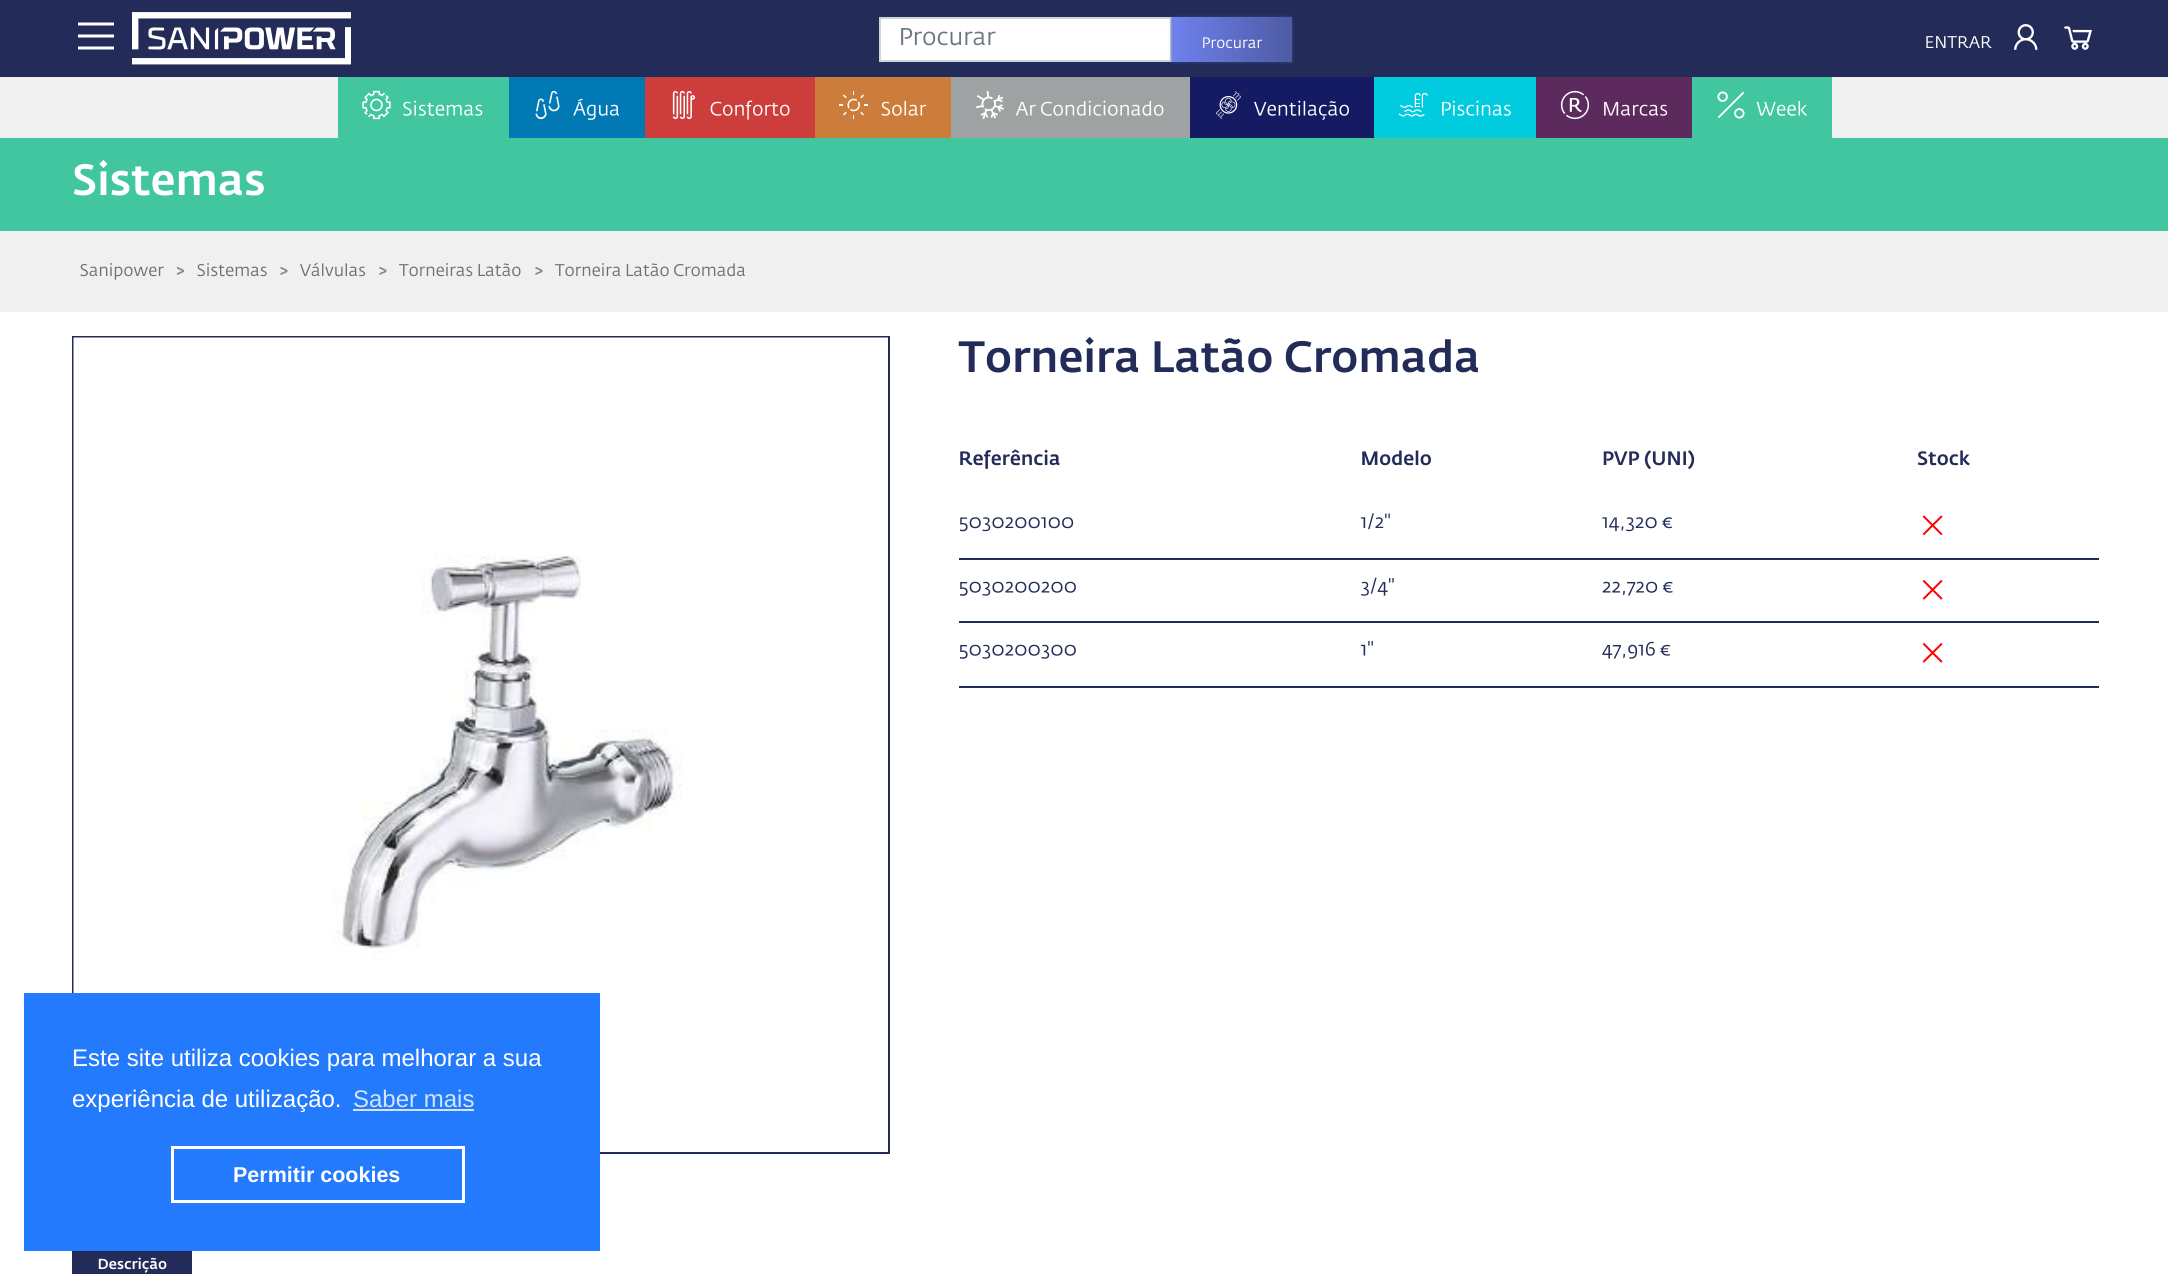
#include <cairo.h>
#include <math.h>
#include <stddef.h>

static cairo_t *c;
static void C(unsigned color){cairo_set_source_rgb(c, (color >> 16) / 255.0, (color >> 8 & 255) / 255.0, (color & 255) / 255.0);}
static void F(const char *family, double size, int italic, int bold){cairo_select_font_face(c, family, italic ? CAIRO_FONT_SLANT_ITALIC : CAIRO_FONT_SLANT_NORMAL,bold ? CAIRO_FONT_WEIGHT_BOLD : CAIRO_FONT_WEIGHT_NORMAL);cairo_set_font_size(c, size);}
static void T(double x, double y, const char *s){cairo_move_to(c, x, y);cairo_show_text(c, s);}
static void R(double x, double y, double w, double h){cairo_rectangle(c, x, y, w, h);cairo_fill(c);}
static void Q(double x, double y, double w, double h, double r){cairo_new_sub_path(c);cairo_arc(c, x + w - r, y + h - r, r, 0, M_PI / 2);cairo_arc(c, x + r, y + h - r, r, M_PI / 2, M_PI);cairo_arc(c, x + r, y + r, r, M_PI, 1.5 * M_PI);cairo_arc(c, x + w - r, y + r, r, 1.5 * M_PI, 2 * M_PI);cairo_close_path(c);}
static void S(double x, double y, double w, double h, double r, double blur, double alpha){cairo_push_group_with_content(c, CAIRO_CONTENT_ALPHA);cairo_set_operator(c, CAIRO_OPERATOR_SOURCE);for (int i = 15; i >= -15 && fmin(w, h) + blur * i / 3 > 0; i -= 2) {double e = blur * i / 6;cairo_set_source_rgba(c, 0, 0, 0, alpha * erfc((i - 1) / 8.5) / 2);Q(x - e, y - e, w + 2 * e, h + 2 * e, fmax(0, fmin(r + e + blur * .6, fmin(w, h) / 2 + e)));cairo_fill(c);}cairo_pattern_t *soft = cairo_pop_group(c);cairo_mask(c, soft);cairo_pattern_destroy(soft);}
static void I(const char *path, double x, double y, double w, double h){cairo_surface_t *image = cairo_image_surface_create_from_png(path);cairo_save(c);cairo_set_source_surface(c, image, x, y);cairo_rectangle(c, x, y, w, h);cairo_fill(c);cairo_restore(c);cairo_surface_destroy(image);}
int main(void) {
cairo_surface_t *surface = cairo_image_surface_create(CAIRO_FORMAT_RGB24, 2168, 1274);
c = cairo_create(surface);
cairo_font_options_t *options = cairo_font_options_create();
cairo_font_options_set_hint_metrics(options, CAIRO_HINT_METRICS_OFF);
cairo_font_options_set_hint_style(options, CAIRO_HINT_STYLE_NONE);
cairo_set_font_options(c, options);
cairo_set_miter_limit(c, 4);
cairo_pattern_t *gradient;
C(0xffffff);
cairo_paint(c);
C(0x232b58);
R(0,0,2168,77);
C(0xffffff);
cairo_new_path(c);
cairo_move_to(c,78,22.5);
cairo_line_to(c,78,25.5);
cairo_line_to(c,114,25.5);
cairo_line_to(c,114,22.5);
cairo_close_path(c);
cairo_move_to(c,78,34.5);
cairo_line_to(c,78,37.5);
cairo_line_to(c,114,37.5);
cairo_line_to(c,114,34.5);
cairo_close_path(c);
cairo_move_to(c,78,46.5);
cairo_line_to(c,78,49.5);
cairo_line_to(c,114,49.5);
cairo_line_to(c,114,46.5);
cairo_close_path(c);
cairo_fill(c);
I("1.png",132,12,219,53);
cairo_rectangle(c,880,18,291,43);
cairo_fill_preserve(c);
C(0xced4da);
cairo_stroke(c);
I("2.png",901,28,95,18);
C(0x384590);
S(1172,17,120,45,0,1.5,1);
gradient = cairo_pattern_create_linear(1172,39,1412,39);
cairo_pattern_add_color_stop_rgba(gradient,0,0.431,0.506,0.933,1);
cairo_pattern_add_color_stop_rgba(gradient,.55,0.294,0.341,0.608,1);
cairo_pattern_add_color_stop_rgba(gradient,1,0.22,0.271,0.565,1);
cairo_set_source(c,gradient);
cairo_pattern_destroy(gradient);
R(1172,17,120,45);
I("3.png",1203,37,60,12);
I("4.png",1926,36,66,13);
I("5.png",2014,24,24,26);
I("6.png",2064,26,28,24);
C(0xf0f0f0);
R(0,77,2168,61);
C(0x42c69f);
R(338,77,171,61);
I("7.png",362,90,29,30);
I("8.png",403,100,80,16);
C(0x0179b5);
R(509,77,136,61);
I("9.png",535,90,25,30);
I("10.png",573,98,46,22);
C(0xcd3d3c);
R(645,77,170,61);
I("11.png",672,90,24,30);
I("12.png",710,100,80,20);
C(0xcc7d3b);
R(815,77,136,61);
I("13.png",839,91,29,28);
I("14.png",881,101,46,15);
C(0x9fa2a2);
R(951,77,239,61);
I("15.png",976,91,28,28);
I("16.png",1015,100,149,16);
C(0x141b62);
R(1190,77,184,61);
I("17.png",1216,91,25,28);
I("18.png",1254,100,95,20);
C(0x01cbdf);
R(1374,77,162,61);
I("19.png",1398,93,30,24);
I("20.png",1442,100,69,16);
C(0x5c2a5d);
R(1536,77,156,61);
I("21.png",1560,90,30,30);
I("22.png",1604,101,64,15);
C(0x41c6a0);
R(1692,77,140,61);
I("23.png",1717,91,28,28);
I("24.png",1756,101,51,15);
C(0x42c69f);
R(0,138,2168,93);
I("25.png",73,160,191,36);
C(0xf0f0f0);
R(0,231,2168,81);
I("26.png",80,263,84,17);
I("27.png",176,266,8,9);
I("28.png",197,263,70,14);
I("29.png",280,266,8,9);
I("30.png",300,262,66,15);
I("29.png",379,266,8,9);
I("31.png",399,263,122,14);
I("29.png",535,266,8,9);
I("32.png",555,263,190,14);
cairo_rectangle(c,73,337,816,816);
C(0x232b58);
cairo_stroke(c);
I("33.png",73,337,815,815);
I("34.png",958,337,521,36);
I("35.png",960,449,100,20);
I("36.png",1362,450,69,16);
I("37.png",1603,451,37,14);
I("38.png",1644,450,51,20);
I("39.png",1917,450,53,16);
I("40.png",1360,513,30,17);
R(959,558,1140,2);
I("41.png",1922,515,21,21);
I("42.png",959,517,115,15);
I("43.png",1602,517,71,15);
I("44.png",1361,577,33,19);
R(959,621,1140,2);
I("45.png",1922,579,21,21);
I("46.png",959,581,117,15);
I("47.png",1602,581,71,15);
I("48.png",1360,641,13,15);
I("49.png",1602,641,69,18);
R(959,686,1140,2);
I("45.png",1922,642,21,21);
I("50.png",959,644,117,15);
R(72,1251,120,23);
I("51.png",98,1257,69,16);
C(0x237afc);
R(24,993,576,258);
F("Liberation Sans",24,0,0);
C(0xffffff);
T(72,1066,"Este site utiliza cookies para melhorar a sua");
T(72,1107,"experiência de utilização.");
C(0xd3e4fe);
T(353,1107,"Saber mais");
R(353,1109,121,2);
cairo_rectangle(c,172.5,1147.5,291,54);
C(0xffffff);
cairo_set_line_width(c,3);
cairo_stroke(c);
F("Liberation Sans",21.5,0,1);
T(233,1182,"Permitir cookies");
cairo_surface_write_to_png(surface, "o.png");
cairo_font_options_destroy(options);
cairo_destroy(c);
cairo_surface_destroy(surface);
return 0;
}
